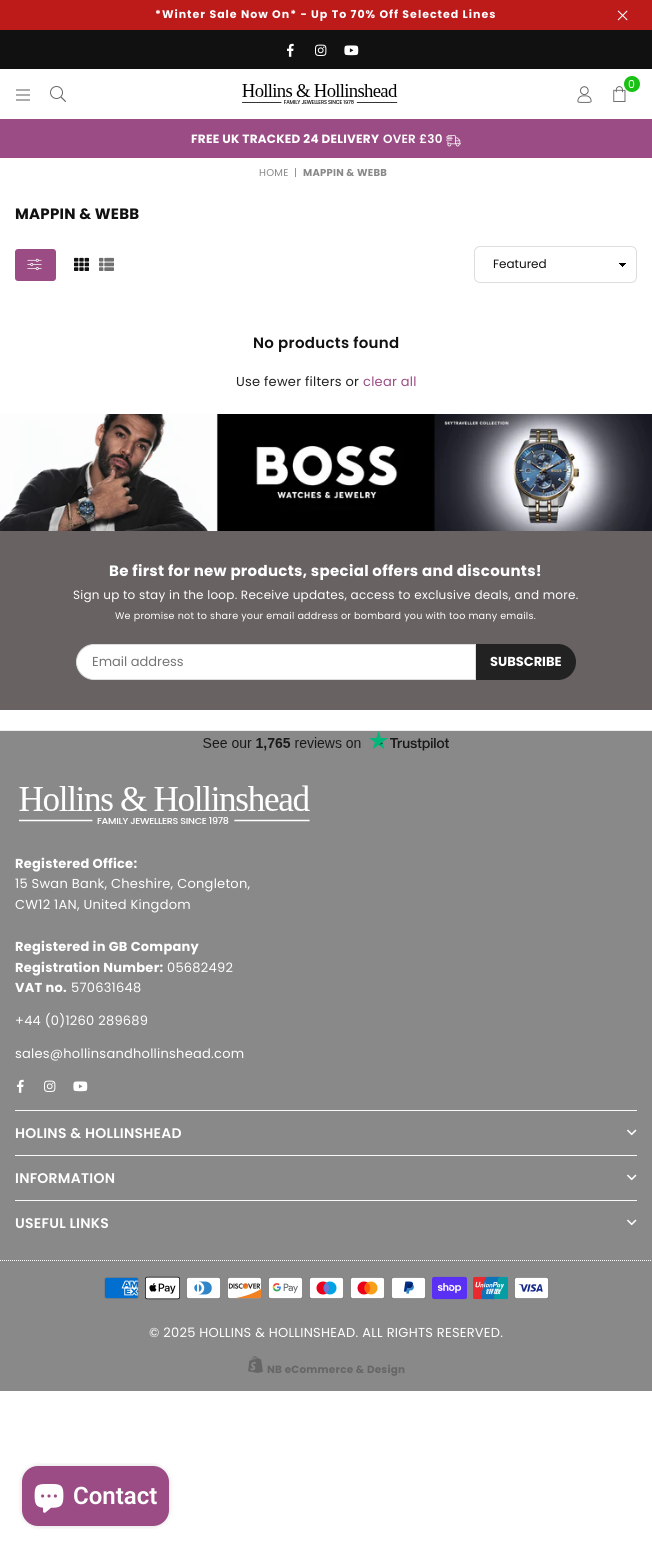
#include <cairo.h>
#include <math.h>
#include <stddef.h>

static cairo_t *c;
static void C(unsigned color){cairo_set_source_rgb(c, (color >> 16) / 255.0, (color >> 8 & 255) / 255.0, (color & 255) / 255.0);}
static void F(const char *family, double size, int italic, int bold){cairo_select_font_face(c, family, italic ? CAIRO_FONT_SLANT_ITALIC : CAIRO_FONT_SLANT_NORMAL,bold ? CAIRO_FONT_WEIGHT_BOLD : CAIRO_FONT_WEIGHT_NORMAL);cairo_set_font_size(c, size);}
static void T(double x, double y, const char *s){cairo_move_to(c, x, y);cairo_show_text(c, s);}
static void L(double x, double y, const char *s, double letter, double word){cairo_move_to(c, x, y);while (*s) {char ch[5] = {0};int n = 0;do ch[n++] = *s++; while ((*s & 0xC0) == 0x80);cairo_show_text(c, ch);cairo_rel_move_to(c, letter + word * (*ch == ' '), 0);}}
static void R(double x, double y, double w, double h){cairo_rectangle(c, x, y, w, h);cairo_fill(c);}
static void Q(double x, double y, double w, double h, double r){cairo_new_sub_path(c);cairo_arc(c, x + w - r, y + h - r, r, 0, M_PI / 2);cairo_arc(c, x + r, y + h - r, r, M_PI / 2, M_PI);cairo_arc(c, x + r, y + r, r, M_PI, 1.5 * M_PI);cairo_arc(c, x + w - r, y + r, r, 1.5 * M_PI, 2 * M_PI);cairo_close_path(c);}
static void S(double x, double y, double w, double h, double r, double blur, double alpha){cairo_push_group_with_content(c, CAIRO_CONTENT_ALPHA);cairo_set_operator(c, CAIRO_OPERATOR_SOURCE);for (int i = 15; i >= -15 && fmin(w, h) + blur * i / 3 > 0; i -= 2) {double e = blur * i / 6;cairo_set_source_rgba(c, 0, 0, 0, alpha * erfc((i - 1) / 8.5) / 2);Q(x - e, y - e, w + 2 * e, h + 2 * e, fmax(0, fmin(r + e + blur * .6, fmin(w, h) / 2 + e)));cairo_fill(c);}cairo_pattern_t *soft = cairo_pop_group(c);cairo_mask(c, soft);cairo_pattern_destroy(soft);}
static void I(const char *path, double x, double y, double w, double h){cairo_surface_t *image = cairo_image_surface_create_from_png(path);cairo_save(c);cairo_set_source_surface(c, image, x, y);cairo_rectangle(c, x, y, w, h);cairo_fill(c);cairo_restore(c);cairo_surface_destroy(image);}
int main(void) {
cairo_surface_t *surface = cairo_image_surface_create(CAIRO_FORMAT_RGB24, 652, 1547);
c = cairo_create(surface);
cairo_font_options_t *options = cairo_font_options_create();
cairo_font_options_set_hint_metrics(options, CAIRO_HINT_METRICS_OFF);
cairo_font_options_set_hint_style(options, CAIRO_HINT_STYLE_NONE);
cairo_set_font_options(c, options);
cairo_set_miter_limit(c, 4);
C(0xffffff);
cairo_paint(c);
C(0xbd1a1a);
R(0,0,652,30);
F("Poppins",11,0,1);
C(0xffffff);
L(155,18,"*Winter Sale Now On* - Up To 70% Off Selected Lines",1,0);
I("1.png",617,10,11,11);
C(0x111111);
R(0,30,652,39);
I("2.png",287,43,7,14);
I("3.png",315,44,12,12);
I("4.png",344,45,15,11);
I("5.png",16,89,14,12);
I("6.png",50,86,16,16);
I("7.png",242,84,156,20);
I("8.png",613,86,13,16);
C(0x18c114);
cairo_arc(c,632,84,8,0,2 * M_PI);
cairo_fill(c);
F("Poppins",11,0,0);
C(0xffffff);
L(628,88,"0",.25,0);
I("9.png",577,86,15,17);
C(0x9b4c84);
R(0,119,652,39);
F("Poppins",12,0,1);
C(0xffffff);
L(191,143,"FREE UK TRACKED 24 DELIVERY",.25,0);
F("Poppins SemiBold",12,0,0);
L(383,143,"OVER £30",.25,0);
I("10.png",446,135,15,12);
F("Poppins",10,0,0);
C(0x898989);
L(259,176,"HOME",.25,0);
L(294,176,"|",.25,0);
F("Poppins",10,0,1);
L(303,176,"MAPPIN & WEBB",.25,0);
F("Poppins",15,0,1);
C(0x111111);
L(15,219,"MAPPIN & WEBB",.25,0);
C(0x9b4c84);
Q(15,249,41,32,3);
cairo_fill(c);
I("11.png",27,258,15,13);
I("12.png",74,257,15,14);
I("13.png",99,257,15,14);
I("14.png",619,263,7,4);
Q(474.5,246.5,162,36,5.5);
C(0xdddddd);
cairo_set_line_width(c,1);
cairo_stroke(c);
F("Poppins",12,0,0);
C(0x111111);
T(493,268,"Featured");
F("Poppins SemiBold",15,0,0);
L(253,348,"No products found",.3,0);
F("Poppins",13,0,0);
C(0x222222);
L(236,386,"Use fewer filters or",.25,0);
C(0x9b4c84);
L(363,386,"clear all",.25,0);
C(0x686262);
R(0,531,652,179);
I("15.png",0,414,652,117);
F("Poppins",15,0,1);
C(0xffffff);
L(109,576,"Be first for new products, special offers and discounts!",.3,0);
F("Poppins",12,0,0);
L(73,599,"Sign up to stay in the loop. Receive updates, access to exclusive deals, and more.",.25,0);
F("Poppins",9.6,0,0);
L(115,619,"We promise not to share your email address or bombard you with too many emails.",.25,0);
cairo_new_path(c);
cairo_move_to(c,94,644.5);
cairo_line_to(c,475.5,644.5);
cairo_line_to(c,475.5,679.5);
cairo_line_to(c,94,679.5);
cairo_curve_to(c,84.5,679.5,76.5,671.5,76.5,662);
cairo_curve_to(c,76.5,652.5,84.5,644.5,94,644.5);
cairo_close_path(c);
cairo_fill_preserve(c);
C(0xdddddd);
cairo_stroke(c);
F("Poppins",13,0,0);
C(0x757575);
T(92,666,"Email address");
C(0x222222);
cairo_new_path(c);
cairo_move_to(c,476,644);
cairo_line_to(c,558,644);
cairo_curve_to(c,568,644,576,652,576,662);
cairo_curve_to(c,576,672,568,680,558,680);
cairo_line_to(c,476,680);
cairo_close_path(c);
cairo_fill(c);
F("Poppins",13,0,1);
C(0xffffff);
T(490,666,"SUBSCRIBE");
C(0x898989);
R(0,731,652,660);
C(0xeeeeee);
R(0,730,652,1);
I("16.png",203,731,246,20);
I("17.png",18,785,292,39);
C(0xffffff);
L(15,868,"Registered Office:",.25,0);
F("Poppins",13,0,0);
L(15,888,"15 Swan Bank, Cheshire, Congleton,",.25,0);
L(15,909,"CW12 1AN, United Kingdom",.25,0);
F("Poppins",13,0,1);
L(15,951,"Registered in GB Company",.25,0);
L(15,972,"Registration Number:",.25,0);
F("Poppins",13,0,0);
L(167,972,"05682492",.25,0);
F("Poppins",13,0,1);
L(15,992,"VAT no.",.25,0);
F("Poppins",13,0,0);
L(71,992,"570631648",.25,0);
L(15,1025,"+44 (0)1260 289689",.25,0);
L(15,1058,"sales@hollinsandhollinshead.com",.25,0);
I("18.png",17,1079,7,14);
I("19.png",44,1080,12,12);
I("20.png",73,1081,15,11);
C(0xf9f9f9);
R(15,1110,622,1);
F("Poppins SemiBold",14,0,0);
C(0xffffff);
L(15,1138,"HOLINS & HOLLINSHEAD",.25,0);
I("21.png",627,1129,10,7);
C(0xf9f9f9);
R(15,1155,622,1);
C(0xffffff);
L(15,1183,"INFORMATION",.25,0);
I("21.png",627,1174,10,7);
C(0xf9f9f9);
R(15,1200,622,1);
C(0xffffff);
L(15,1228,"USEFUL LINKS",.25,0);
I("21.png",627,1219,10,7);
cairo_new_path(c);
cairo_move_to(c,0,1260.5);
cairo_line_to(c,652,1260.5);
cairo_set_dash(c,(double[]){1,1},2,0);
cairo_stroke(c);
I("22.png",104,1277,35,22);
I("23.png",145,1276,35,24);
I("24.png",186,1277,35,22);
I("25.png",227,1277,35,22);
I("26.png",268,1277,35,22);
I("27.png",309,1277,35,22);
I("28.png",350,1277,35,22);
I("29.png",391,1277,35,22);
I("30.png",432,1276,35,24);
I("31.png",473,1276,35,24);
I("32.png",514,1277,35,22);
F("Poppins",13,0,0);
L(149,1337,"© 2025 HOLLINS & HOLLINSHEAD. ALL RIGHTS RESERVED.",.25,0);
I("33.png",248,1356,15,17);
F("Poppins",10.4,0,1);
C(0x666666);
L(267,1373,"NB eCommerce & Design",.25,0);
C(0x000000);
S(22,1466,147,60,16,2.5,.15);
C(0x9b4c84);
Q(22,1466,147,60,16);
cairo_fill(c);
I("34.png",34,1484,30,29);
F("Roboto SemiBold",24,0,0);
C(0xffffff);
T(73,1504,"Contact");
cairo_surface_write_to_png(surface, "o.png");
cairo_font_options_destroy(options);
cairo_destroy(c);
cairo_surface_destroy(surface);
return 0;
}
